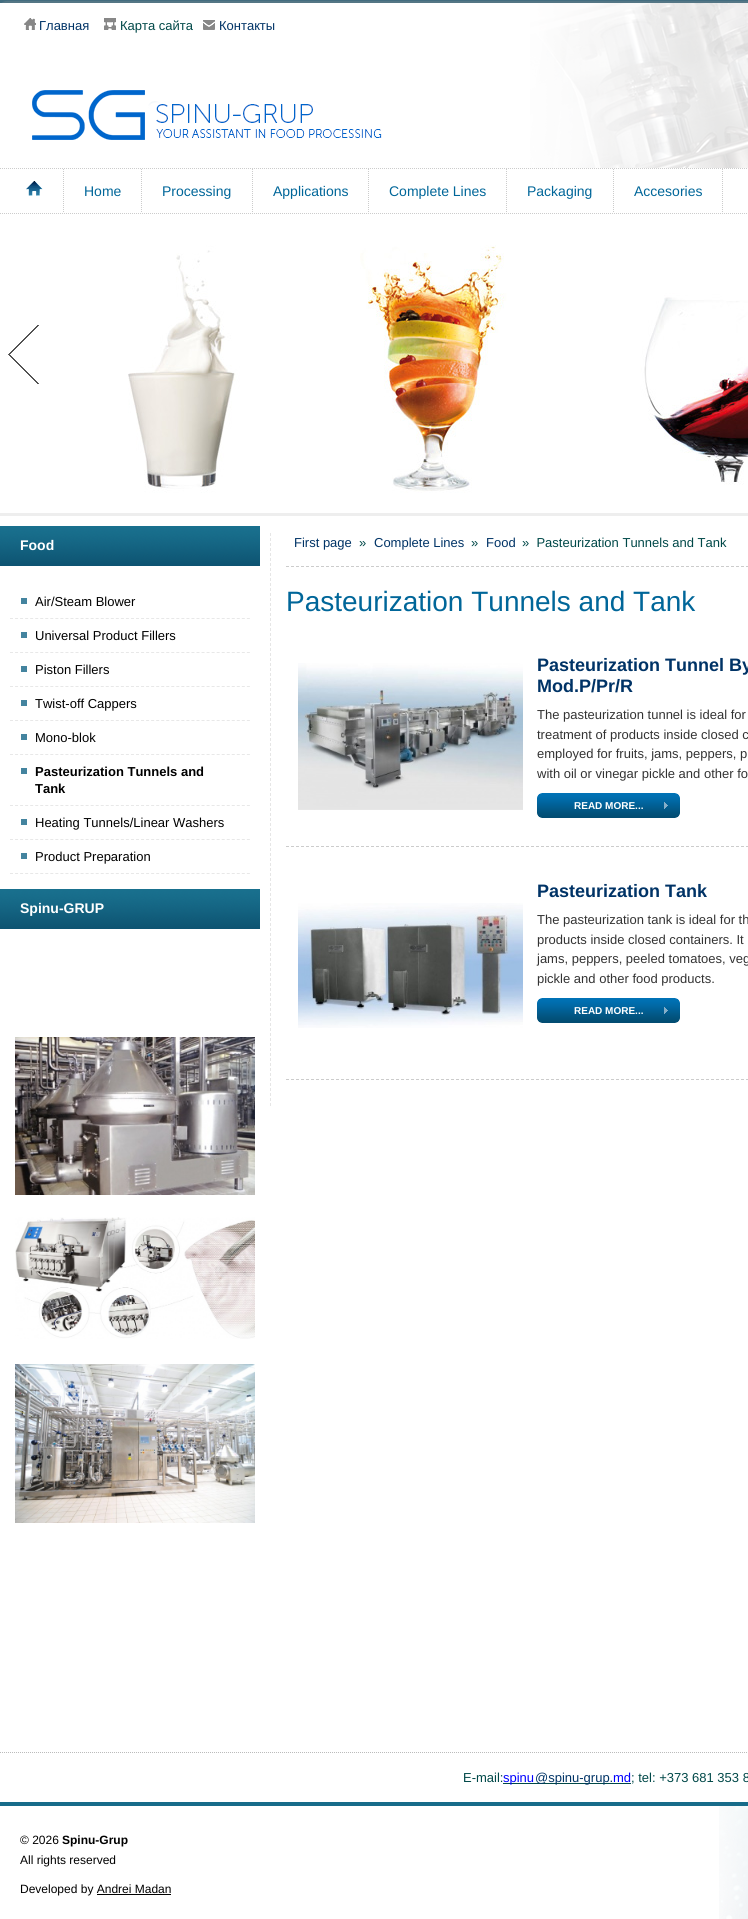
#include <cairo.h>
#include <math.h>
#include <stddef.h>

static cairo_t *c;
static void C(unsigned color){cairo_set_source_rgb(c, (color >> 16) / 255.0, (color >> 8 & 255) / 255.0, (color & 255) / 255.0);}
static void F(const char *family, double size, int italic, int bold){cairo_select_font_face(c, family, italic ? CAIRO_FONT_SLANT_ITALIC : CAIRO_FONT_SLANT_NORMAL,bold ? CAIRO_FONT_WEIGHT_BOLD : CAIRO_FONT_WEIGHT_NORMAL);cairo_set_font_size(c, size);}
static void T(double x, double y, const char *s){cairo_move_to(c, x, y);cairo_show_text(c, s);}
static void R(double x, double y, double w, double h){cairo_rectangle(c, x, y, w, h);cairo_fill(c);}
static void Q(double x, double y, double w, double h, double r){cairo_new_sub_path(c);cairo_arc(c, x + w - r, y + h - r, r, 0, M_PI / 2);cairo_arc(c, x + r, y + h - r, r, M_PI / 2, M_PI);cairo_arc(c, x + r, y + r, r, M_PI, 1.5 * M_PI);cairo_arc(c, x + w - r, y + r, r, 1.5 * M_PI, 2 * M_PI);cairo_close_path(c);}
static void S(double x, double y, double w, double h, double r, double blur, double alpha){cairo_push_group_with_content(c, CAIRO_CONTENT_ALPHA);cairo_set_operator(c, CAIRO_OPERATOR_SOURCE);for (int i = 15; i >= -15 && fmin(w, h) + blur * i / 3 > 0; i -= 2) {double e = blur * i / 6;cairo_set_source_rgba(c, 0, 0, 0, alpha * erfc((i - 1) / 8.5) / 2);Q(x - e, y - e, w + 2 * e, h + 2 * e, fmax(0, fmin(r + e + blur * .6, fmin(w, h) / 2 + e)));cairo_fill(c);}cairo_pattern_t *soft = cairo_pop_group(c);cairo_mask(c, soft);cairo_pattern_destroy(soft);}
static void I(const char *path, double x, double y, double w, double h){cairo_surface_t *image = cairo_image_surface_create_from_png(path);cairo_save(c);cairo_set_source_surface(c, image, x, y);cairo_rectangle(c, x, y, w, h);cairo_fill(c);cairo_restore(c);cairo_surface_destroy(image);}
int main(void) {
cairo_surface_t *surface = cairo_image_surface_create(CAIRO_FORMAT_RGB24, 748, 1919);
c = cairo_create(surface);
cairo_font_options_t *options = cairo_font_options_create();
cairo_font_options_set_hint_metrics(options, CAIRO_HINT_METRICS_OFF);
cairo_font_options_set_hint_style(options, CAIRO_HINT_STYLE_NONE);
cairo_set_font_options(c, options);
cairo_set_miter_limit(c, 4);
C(0xffffff);
cairo_paint(c);
C(0x0e5371);
R(0,0,748,3);
cairo_save(c);
cairo_rectangle(c,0,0,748,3);
cairo_clip(c);
C(0x999999);
S(0,3,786,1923,0,12.5,1);
cairo_restore(c);
I("1.png",530,3,218,165);
I("2.png",24,18,12,12);
F("Liberation Sans",13,0,0);
C(0x003366);
T(39,30,"Главная");
I("3.png",104,18,12,12);
C(0x004848);
T(120,30,"Карта сайта");
I("4.png",203,20,12,10);
C(0x003366);
T(219,30,"Контакты");
I("5.png",32,90,350,50);
cairo_new_path(c);
cairo_move_to(c,0,168.5);
cairo_line_to(c,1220,168.5);
C(0xcccccc);
cairo_set_line_width(c,1);
cairo_set_dash(c,(double[]){1,1},2,0);
cairo_stroke(c);
cairo_new_path(c);
cairo_move_to(c,0,213.5);
cairo_line_to(c,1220,213.5);
cairo_stroke(c);
cairo_new_path(c);
cairo_move_to(c,63.5,169);
cairo_line_to(c,63.5,213);
cairo_stroke(c);
I("6.png",26,181,17,15);
cairo_new_path(c);
cairo_move_to(c,141.5,169);
cairo_line_to(c,141.5,213);
cairo_stroke(c);
F("Liberation Sans",14,0,0);
C(0x006699);
T(84,196,"Home");
cairo_new_path(c);
cairo_move_to(c,252.5,169);
cairo_line_to(c,252.5,213);
C(0xcccccc);
cairo_stroke(c);
C(0x006699);
T(162,196,"Processing");
cairo_new_path(c);
cairo_move_to(c,368.5,169);
cairo_line_to(c,368.5,213);
C(0xcccccc);
cairo_stroke(c);
C(0x006699);
T(273,196,"Applications");
cairo_new_path(c);
cairo_move_to(c,506.5,169);
cairo_line_to(c,506.5,213);
C(0xcccccc);
cairo_stroke(c);
C(0x006699);
T(389,196,"Complete Lines");
cairo_new_path(c);
cairo_move_to(c,613.5,169);
cairo_line_to(c,613.5,213);
C(0xcccccc);
cairo_stroke(c);
C(0x006699);
T(527,196,"Packaging");
cairo_new_path(c);
cairo_move_to(c,722.5,169);
cairo_line_to(c,722.5,213);
C(0xcccccc);
cairo_stroke(c);
C(0x006699);
T(634,196,"Accesories");
C(0xeeeeee);
R(0,513,748,3);
I("7.png",0,214,748,299);
I("8.png",8,325,31,59);
I("9.png",0,526,260,40);
F("Liberation Sans",14,0,1);
C(0xffffff);
T(20,550,"Food");
cairo_new_path(c);
cairo_move_to(c,10,618.5);
cairo_line_to(c,250,618.5);
C(0xe8e8e8);
cairo_set_dash(c,(double[]){3,2.04},2,0);
cairo_stroke(c);
C(0x44849f);
R(21,598,6,6);
F("Liberation Sans",13,0,0);
C(0x000000);
T(35,606,"Air/Steam Blower");
cairo_new_path(c);
cairo_move_to(c,10,652.5);
cairo_line_to(c,250,652.5);
C(0xe8e8e8);
cairo_stroke(c);
C(0x44849f);
R(21,632,6,6);
C(0x000000);
T(35,640,"Universal Product Fillers");
cairo_new_path(c);
cairo_move_to(c,10,686.5);
cairo_line_to(c,250,686.5);
C(0xe8e8e8);
cairo_stroke(c);
C(0x44849f);
R(21,666,6,6);
C(0x000000);
T(35,674,"Piston Fillers");
cairo_new_path(c);
cairo_move_to(c,10,720.5);
cairo_line_to(c,250,720.5);
C(0xe8e8e8);
cairo_stroke(c);
C(0x44849f);
R(21,700,6,6);
C(0x000000);
T(35,708,"Twist-off Cappers");
cairo_new_path(c);
cairo_move_to(c,10,754.5);
cairo_line_to(c,250,754.5);
C(0xe8e8e8);
cairo_stroke(c);
C(0x44849f);
R(21,734,6,6);
C(0x000000);
T(35,742,"Mono-blok");
cairo_new_path(c);
cairo_move_to(c,10,805.5);
cairo_line_to(c,250,805.5);
C(0xe8e8e8);
cairo_stroke(c);
C(0x44849f);
R(21,768,6,6);
F("Liberation Sans",13,0,1);
C(0x000000);
T(35,776,"Pasteurization Tunnels and");
T(35,793,"Tank");
cairo_new_path(c);
cairo_move_to(c,10,839.5);
cairo_line_to(c,250,839.5);
C(0xe8e8e8);
cairo_stroke(c);
C(0x44849f);
R(21,819,6,6);
F("Liberation Sans",13,0,0);
C(0x000000);
T(35,827,"Heating Tunnels/Linear Washers");
cairo_new_path(c);
cairo_move_to(c,10,873.5);
cairo_line_to(c,250,873.5);
C(0xe8e8e8);
cairo_stroke(c);
C(0x44849f);
R(21,853,6,6);
C(0x000000);
T(35,861,"Product Preparation");
I("9.png",0,889,260,40);
F("Liberation Sans",14,0,1);
C(0xffffff);
T(20,913,"Spinu-GRUP");
I("10.png",15,1037,240,158);
I("11.png",15,1217,240,122);
I("12.png",15,1364,240,159);
cairo_new_path(c);
cairo_move_to(c,270.5,533);
cairo_line_to(c,270.5,1106);
C(0xe6e6e6);
cairo_set_dash(c,(double[]){3,2},2,0);
cairo_stroke(c);
F("Liberation Sans",13,0,0);
C(0x003366);
T(294,547,"First page");
C(0x004848);
T(359,547,"»");
C(0x003366);
T(374,547,"Complete Lines");
C(0x004848);
T(471,547,"»");
C(0x003366);
T(486,547,"Food");
C(0x004848);
T(522,547,"»  Pasteurization Tunnels and Tank");
cairo_new_path(c);
cairo_move_to(c,286,566.5);
cairo_line_to(c,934,566.5);
C(0xcccccc);
cairo_stroke(c);
F("Liberation Sans",28,0,0);
C(0x006699);
T(286,611,"Pasteurization Tunnels and Tank");
I("13.png",298,663,225,147);
F("Liberation Sans",18,0,1);
C(0x003366);
T(537,671,"Pasteurization Tunnel By");
T(537,692,"Mod.P/Pr/R");
F("Liberation Sans",13,0,0);
C(0x333333);
T(537,719,"The pasteurization tunnel is ideal for");
T(537,739,"treatment of products inside closed c");
T(537,758,"employed for fruits, jams, peppers, p");
T(537,778,"with oil or vinegar pickle and other fo");
I("14.png",537,793,143,25);
F("Liberation Sans",10,0,1);
C(0xffffff);
T(574,809,"READ MORE...");
cairo_new_path(c);
cairo_move_to(c,286,846.5);
cairo_line_to(c,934,846.5);
C(0xcccccc);
cairo_stroke(c);
I("15.png",298,903,225,125);
F("Liberation Sans",18,0,1);
C(0x003366);
T(537,897,"Pasteurization Tank");
F("Liberation Sans",13,0,0);
C(0x333333);
T(537,924,"The pasteurization tank is ideal for th");
T(537,944,"products inside closed containers. It");
T(537,963,"jams, peppers, peeled tomatoes, veg");
T(537,983,"pickle and other food products.");
I("14.png",537,998,143,25);
F("Liberation Sans",10,0,1);
C(0xffffff);
T(574,1014,"READ MORE...");
cairo_new_path(c);
cairo_move_to(c,286,1079.5);
cairo_line_to(c,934,1079.5);
C(0xcccccc);
cairo_stroke(c);
cairo_new_path(c);
cairo_move_to(c,0,1752.5);
cairo_line_to(c,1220,1752.5);
C(0xbbbbbb);
cairo_set_dash(c,(double[]){1,1},2,0);
cairo_stroke(c);
F("Liberation Sans",13,0,0);
C(0x004848);
T(463,1782,"E-mail:");
R(503,1783,128,1);
C(0x0000ff);
T(503,1782,"spinu");
C(0x003366);
T(535,1782,"@spinu-grup.");
C(0x0000ff);
T(613,1782,"md");
C(0x004848);
T(631,1782,"; tel: +373 681 353 8");
I("16.png",719,1806,29,113);
C(0x186c8a);
R(0,1802,748,4);
F("Liberation Sans",12,0,0);
C(0x000000);
T(20,1844,"© 2026");
F("Liberation Sans",12,0,1);
T(62,1844,"Spinu-Grup");
F("Liberation Sans",12,0,0);
T(20,1864,"All rights reserved");
T(20,1893,"Developed by Andrei Madan");
R(97,1894,74,1);
cairo_surface_write_to_png(surface, "o.png");
cairo_font_options_destroy(options);
cairo_destroy(c);
cairo_surface_destroy(surface);
return 0;
}
